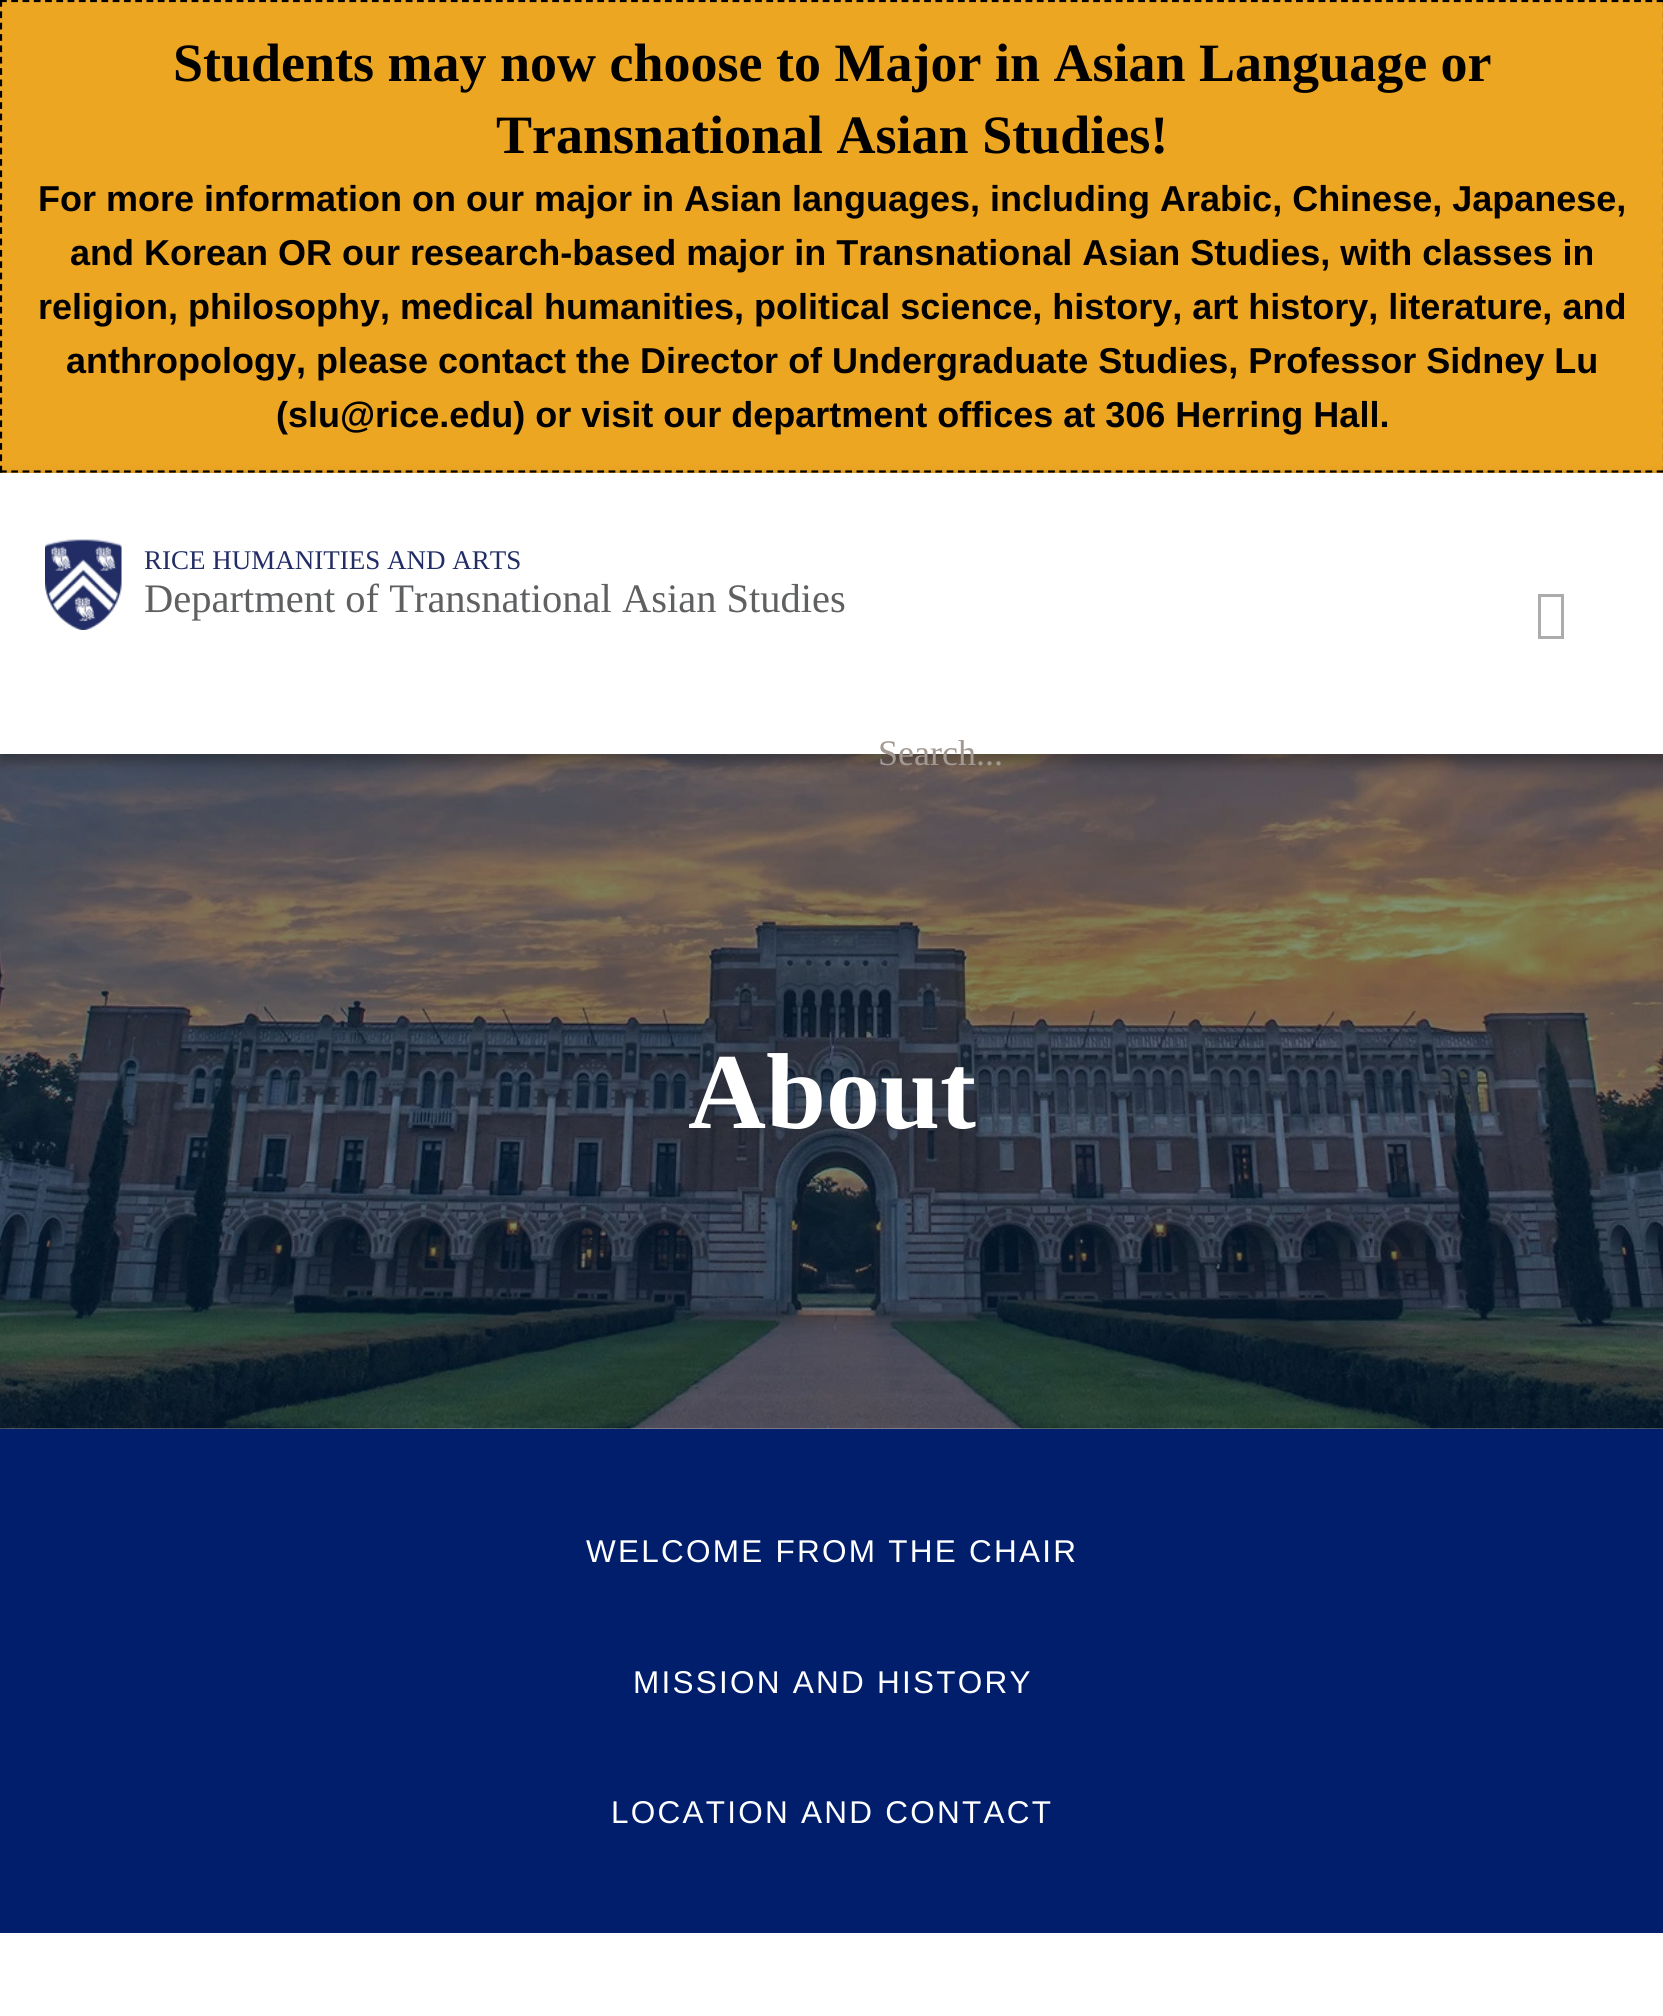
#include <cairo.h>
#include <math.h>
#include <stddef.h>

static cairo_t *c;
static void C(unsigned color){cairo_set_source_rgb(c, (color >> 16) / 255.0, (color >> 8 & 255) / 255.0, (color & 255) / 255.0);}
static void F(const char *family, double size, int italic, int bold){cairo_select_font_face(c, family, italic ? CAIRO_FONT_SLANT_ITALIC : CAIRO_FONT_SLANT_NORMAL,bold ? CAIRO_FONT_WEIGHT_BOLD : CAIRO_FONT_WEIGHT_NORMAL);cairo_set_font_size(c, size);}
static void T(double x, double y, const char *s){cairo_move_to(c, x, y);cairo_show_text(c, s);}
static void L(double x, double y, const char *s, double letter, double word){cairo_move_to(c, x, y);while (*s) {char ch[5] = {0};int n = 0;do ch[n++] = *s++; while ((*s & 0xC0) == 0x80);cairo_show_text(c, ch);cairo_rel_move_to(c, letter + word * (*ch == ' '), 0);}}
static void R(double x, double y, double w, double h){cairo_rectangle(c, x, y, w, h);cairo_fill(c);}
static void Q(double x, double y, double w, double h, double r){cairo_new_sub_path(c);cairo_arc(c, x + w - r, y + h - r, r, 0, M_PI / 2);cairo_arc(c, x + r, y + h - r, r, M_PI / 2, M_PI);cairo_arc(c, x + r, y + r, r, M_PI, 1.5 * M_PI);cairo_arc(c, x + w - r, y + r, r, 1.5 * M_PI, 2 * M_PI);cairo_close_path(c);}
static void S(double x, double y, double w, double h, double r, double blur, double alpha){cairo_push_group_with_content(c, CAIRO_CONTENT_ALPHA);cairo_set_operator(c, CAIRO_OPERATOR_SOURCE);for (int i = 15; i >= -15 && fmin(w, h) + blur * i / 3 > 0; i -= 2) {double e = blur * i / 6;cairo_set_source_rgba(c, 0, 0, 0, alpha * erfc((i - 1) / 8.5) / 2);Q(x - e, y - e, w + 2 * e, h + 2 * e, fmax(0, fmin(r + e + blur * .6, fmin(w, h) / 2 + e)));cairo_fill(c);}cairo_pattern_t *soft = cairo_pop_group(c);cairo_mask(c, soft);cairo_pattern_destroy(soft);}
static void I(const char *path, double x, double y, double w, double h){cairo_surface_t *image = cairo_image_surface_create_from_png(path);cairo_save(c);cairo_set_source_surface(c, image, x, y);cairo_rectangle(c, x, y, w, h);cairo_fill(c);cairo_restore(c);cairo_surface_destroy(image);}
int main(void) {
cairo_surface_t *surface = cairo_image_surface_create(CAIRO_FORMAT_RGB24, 1663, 2016);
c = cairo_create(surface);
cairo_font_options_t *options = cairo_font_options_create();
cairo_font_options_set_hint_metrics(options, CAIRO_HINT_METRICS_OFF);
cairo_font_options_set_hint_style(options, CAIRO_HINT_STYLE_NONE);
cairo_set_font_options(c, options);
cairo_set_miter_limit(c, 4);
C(0xffffff);
cairo_paint(c);
C(0xeda622);
R(0,0,1663,473);
cairo_new_path(c);
cairo_move_to(c,0,1);
cairo_line_to(c,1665,1);
C(0x000000);
cairo_set_line_width(c,2.2);
cairo_set_dash(c,(double[]){6.75,4.52},2,0);
cairo_stroke(c);
cairo_new_path(c);
cairo_move_to(c,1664,0);
cairo_line_to(c,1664,472.5);
cairo_set_dash(c,(double[]){6.75,4.61},2,0);
cairo_stroke(c);
cairo_new_path(c);
cairo_move_to(c,0,471.5);
cairo_line_to(c,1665,471.5);
cairo_set_dash(c,(double[]){6.75,4.52},2,0);
cairo_stroke(c);
cairo_new_path(c);
cairo_move_to(c,1,0);
cairo_line_to(c,1,472.5);
cairo_set_dash(c,(double[]){6.75,4.61},2,0);
cairo_stroke(c);
F("Liberation Serif",54,0,1);
T(173,81,"Students may now choose to Major in Asian Language or");
T(496,153,"Transnational Asian Studies!");
F("Liberation Sans",36,0,1);
T(38,211,"For more information on our major in Asian languages, including Arabic, Chinese, Japanese,");
T(70,265,"and Korean OR our research-based major in Transnational Asian Studies, with classes in");
T(38,319,"religion, philosophy, medical humanities, political science, history, art history, literature, and");
T(66,373,"anthropology, please contact the Director of Undergraduate Studies, Professor Sidney Lu");
T(276,427,"(slu@rice.edu) or visit our department offices at 306 Herring Hall.");
I("2.png",0,754,1663,675);
C(0x000000);
S(0,479,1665,282,0,7,.23);
S(0,479,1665,282,0,7,.16);
C(0xffffff);
R(0,473,1663,281);
I("1.png",45,539,77,91);
F("Liberation Serif",27,0,0);
C(0x222d65);
T(144,569,"RICE HUMANITIES AND ARTS");
F("Liberation Serif",40.5,0,0);
C(0x5f6062);
T(144,612,"Department of Transnational Asian Studies");
C(0xacacac);
cairo_new_path(c);
cairo_move_to(c,1538,639);
cairo_line_to(c,1538,594);
cairo_line_to(c,1564,594);
cairo_line_to(c,1564,639);
cairo_close_path(c);
cairo_move_to(c,1541,636);
cairo_line_to(c,1561,636);
cairo_line_to(c,1561,597);
cairo_line_to(c,1541,597);
cairo_close_path(c);
cairo_fill(c);
F("Liberation Serif",36,0,0);
C(0xa29993);
T(878,765,"Search...");
F("Liberation Serif",108,0,1);
C(0xffffff);
T(688,1128,"About");
C(0x001e6b);
R(0,1429,1663,504);
F("Liberation Sans",31.5,0,0);
C(0xffffff);
L(586,1562,"WELCOME FROM THE CHAIR",2.25,0);
L(633,1693,"MISSION AND HISTORY",2.25,0);
L(611,1823,"LOCATION AND CONTACT",2.25,0);
cairo_surface_write_to_png(surface, "o.png");
cairo_font_options_destroy(options);
cairo_destroy(c);
cairo_surface_destroy(surface);
return 0;
}
